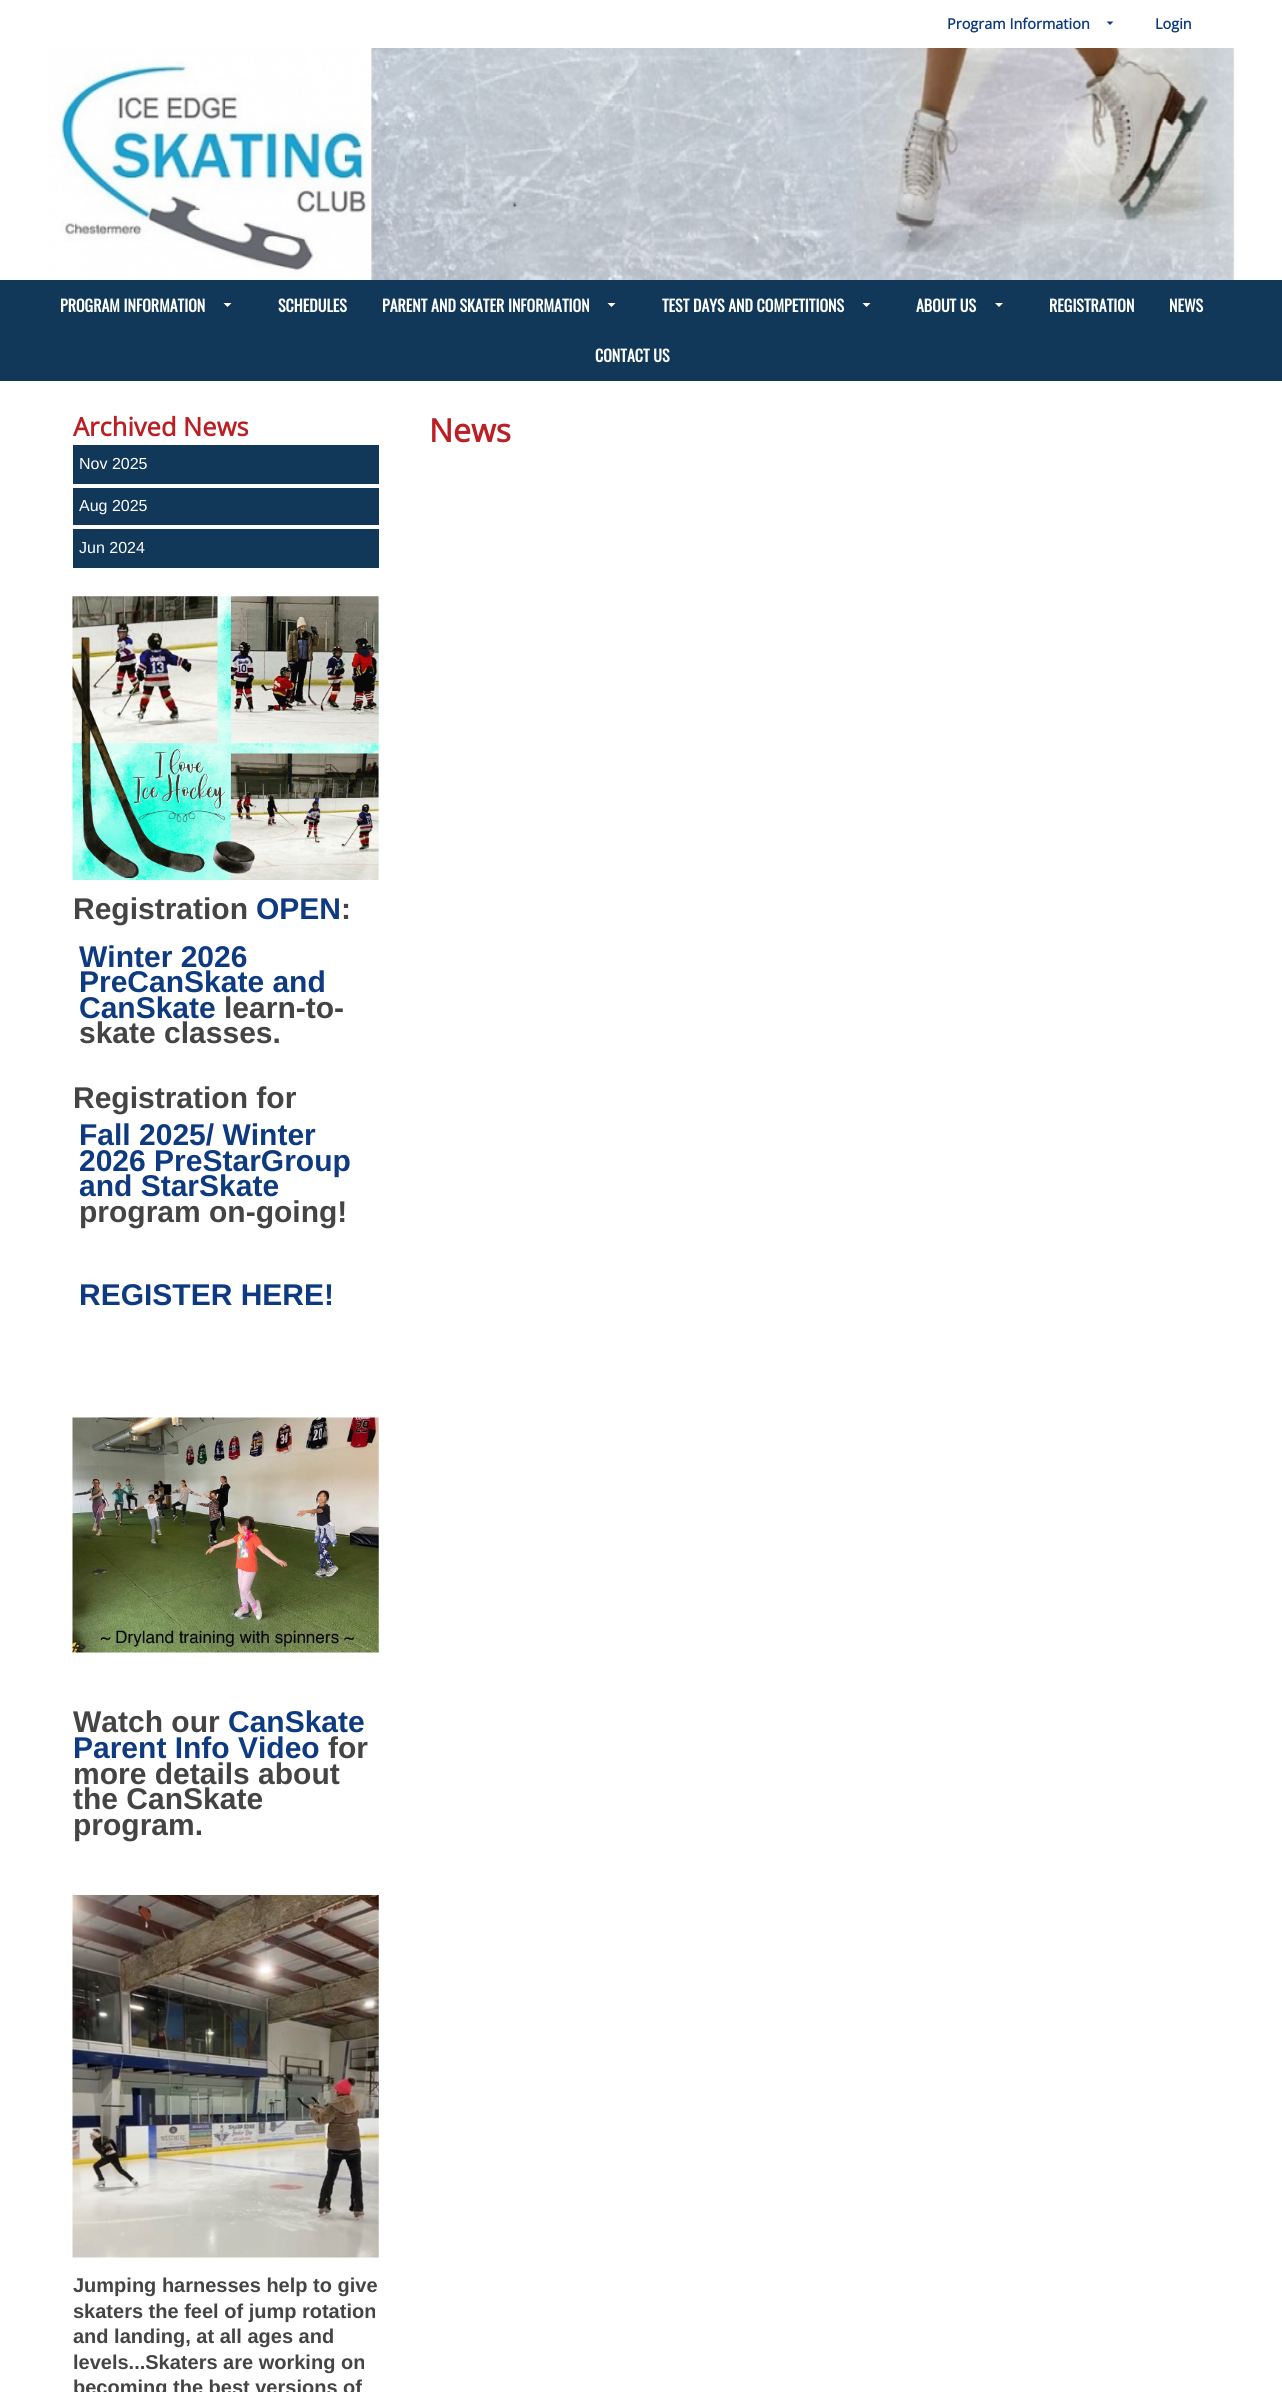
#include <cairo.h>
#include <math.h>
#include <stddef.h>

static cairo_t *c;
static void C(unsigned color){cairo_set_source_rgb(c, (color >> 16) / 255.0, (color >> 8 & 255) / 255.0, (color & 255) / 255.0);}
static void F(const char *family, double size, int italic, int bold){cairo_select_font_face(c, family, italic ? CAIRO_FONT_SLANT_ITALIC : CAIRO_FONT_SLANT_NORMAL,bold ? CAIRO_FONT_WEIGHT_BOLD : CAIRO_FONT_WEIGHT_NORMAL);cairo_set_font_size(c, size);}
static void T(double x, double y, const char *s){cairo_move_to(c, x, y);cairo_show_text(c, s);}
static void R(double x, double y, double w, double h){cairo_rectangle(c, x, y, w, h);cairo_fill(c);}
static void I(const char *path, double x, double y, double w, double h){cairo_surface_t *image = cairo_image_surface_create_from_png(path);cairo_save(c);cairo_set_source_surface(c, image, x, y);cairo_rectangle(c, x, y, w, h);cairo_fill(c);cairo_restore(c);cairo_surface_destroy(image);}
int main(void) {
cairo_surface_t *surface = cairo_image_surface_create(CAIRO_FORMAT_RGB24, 1282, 2392);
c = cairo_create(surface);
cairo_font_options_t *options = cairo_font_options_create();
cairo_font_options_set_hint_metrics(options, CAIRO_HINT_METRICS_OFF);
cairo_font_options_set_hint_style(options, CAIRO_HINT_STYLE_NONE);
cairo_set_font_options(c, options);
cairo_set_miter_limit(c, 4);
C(0xffffff);
cairo_paint(c);
F("Open Sans",14.5,0,1);
C(0x0d3a80);
T(947,29,"Program Information");
cairo_new_path(c);
cairo_move_to(c,1106.5,21.5);
cairo_line_to(c,1110,25);
cairo_line_to(c,1113.5,21.5);
cairo_close_path(c);
cairo_fill(c);
T(1155,29,"Login");
I("1.png",48,48,1187,232);
C(0x113859);
R(0,280,1282,101);
F("Oswald",16,0,1);
C(0xffffff);
T(60,312,"PROGRAM INFORMATION");
cairo_new_path(c);
cairo_move_to(c,223.5,303);
cairo_line_to(c,227.5,307);
cairo_line_to(c,231.5,303);
cairo_close_path(c);
cairo_fill(c);
T(278,312,"SCHEDULES");
T(382,312,"PARENT AND SKATER INFORMATION");
cairo_new_path(c);
cairo_move_to(c,607.5,303);
cairo_line_to(c,611.5,307);
cairo_line_to(c,615.5,303);
cairo_close_path(c);
cairo_fill(c);
T(662,312,"TEST DAYS AND COMPETITIONS");
cairo_new_path(c);
cairo_move_to(c,862.5,303);
cairo_line_to(c,866.5,307);
cairo_line_to(c,870.5,303);
cairo_close_path(c);
cairo_fill(c);
T(916,312,"ABOUT US");
cairo_new_path(c);
cairo_move_to(c,995,303);
cairo_line_to(c,999,307);
cairo_line_to(c,1003,303);
cairo_close_path(c);
cairo_fill(c);
T(1049,312,"REGISTRATION");
T(1169,312,"NEWS");
T(595,362,"CONTACT US");
F("Open Sans",25.5,0,1);
C(0xba1f24);
T(73,436,"Archived News");
C(0x113859);
R(73,445,306,39);
F("Liberation Sans",16,0,0);
C(0xffffff);
T(79,469,"Nov 2025");
C(0x113859);
R(73,488,306,37);
C(0xffffff);
T(79,511,"Aug 2025");
C(0x113859);
R(73,529,306,39);
C(0xffffff);
T(79,553,"Jun 2024");
I("2.png",72,596,307,284);
F("Liberation Sans",30,0,1);
C(0x444444);
T(73,919,"Registration");
C(0x0d3a80);
T(256,919,"OPEN");
C(0x444444);
T(341,919,":");
C(0x0d3a80);
T(79,967,"Winter 2026");
T(79,992,"PreCanSkate and");
T(79,1018,"CanSkate");
C(0x444444);
T(224,1018,"learn-to-");
T(79,1043,"skate classes.");
T(73,1108,"Registration for");
C(0x0d3a80);
T(79,1145,"Fall 2025/ Winter");
T(79,1171,"2026 PreStarGroup");
T(79,1196,"and StarSkate");
C(0x444444);
T(79,1222,"program on-going!");
C(0x0d3a80);
T(79,1305,"REGISTER HERE!");
I("3.png",72,1417,307,236);
C(0x444444);
T(73,1732,"Watch our");
C(0x0d3a80);
T(228,1732,"CanSkate");
T(73,1758,"Parent Info Video");
C(0x444444);
T(328,1758,"for");
T(73,1784,"more details about");
T(73,1809,"the CanSkate");
T(73,1835,"program.");
I("4.png",72,1895,307,363);
F("Liberation Sans",20,0,1);
T(73,2292,"Jumping harnesses help to give");
T(73,2318,"skaters the feel of jump rotation");
T(73,2343,"and landing, at all ages and");
T(73,2369,"levels...Skaters are working on");
T(73,2394,"becoming the best versions of");
F("Open Sans",32,0,1);
C(0xba1f24);
T(429,442,"News");
cairo_surface_write_to_png(surface, "o.png");
cairo_font_options_destroy(options);
cairo_destroy(c);
cairo_surface_destroy(surface);
return 0;
}
